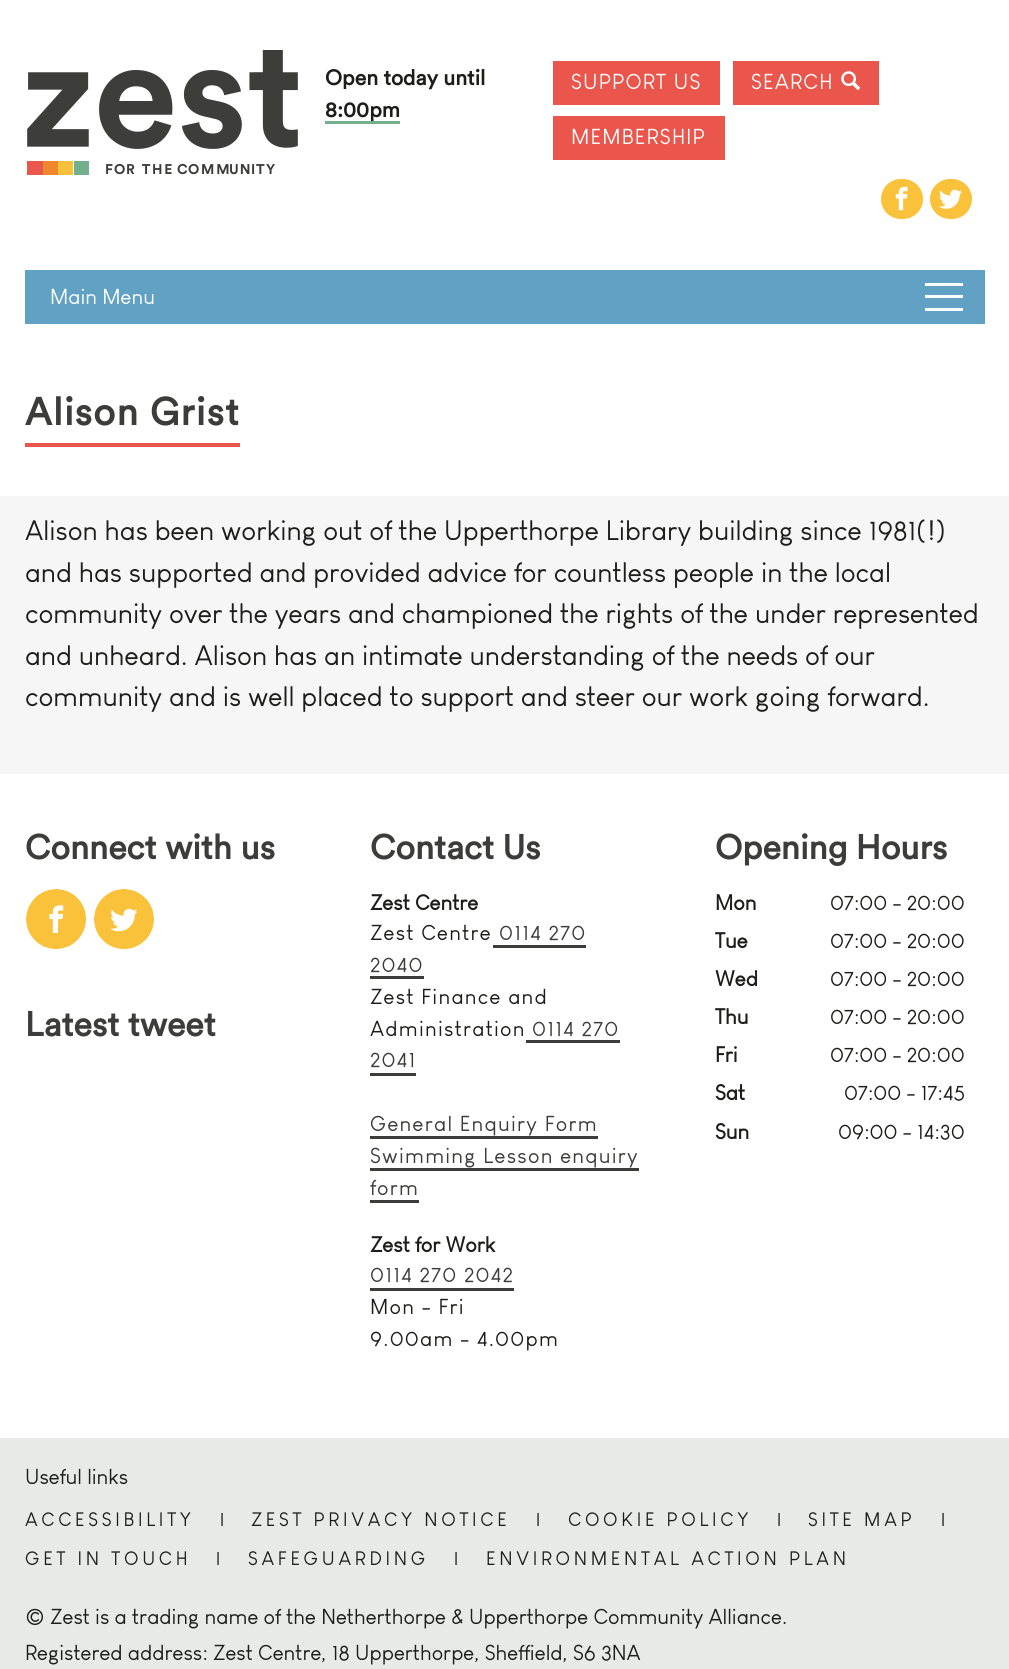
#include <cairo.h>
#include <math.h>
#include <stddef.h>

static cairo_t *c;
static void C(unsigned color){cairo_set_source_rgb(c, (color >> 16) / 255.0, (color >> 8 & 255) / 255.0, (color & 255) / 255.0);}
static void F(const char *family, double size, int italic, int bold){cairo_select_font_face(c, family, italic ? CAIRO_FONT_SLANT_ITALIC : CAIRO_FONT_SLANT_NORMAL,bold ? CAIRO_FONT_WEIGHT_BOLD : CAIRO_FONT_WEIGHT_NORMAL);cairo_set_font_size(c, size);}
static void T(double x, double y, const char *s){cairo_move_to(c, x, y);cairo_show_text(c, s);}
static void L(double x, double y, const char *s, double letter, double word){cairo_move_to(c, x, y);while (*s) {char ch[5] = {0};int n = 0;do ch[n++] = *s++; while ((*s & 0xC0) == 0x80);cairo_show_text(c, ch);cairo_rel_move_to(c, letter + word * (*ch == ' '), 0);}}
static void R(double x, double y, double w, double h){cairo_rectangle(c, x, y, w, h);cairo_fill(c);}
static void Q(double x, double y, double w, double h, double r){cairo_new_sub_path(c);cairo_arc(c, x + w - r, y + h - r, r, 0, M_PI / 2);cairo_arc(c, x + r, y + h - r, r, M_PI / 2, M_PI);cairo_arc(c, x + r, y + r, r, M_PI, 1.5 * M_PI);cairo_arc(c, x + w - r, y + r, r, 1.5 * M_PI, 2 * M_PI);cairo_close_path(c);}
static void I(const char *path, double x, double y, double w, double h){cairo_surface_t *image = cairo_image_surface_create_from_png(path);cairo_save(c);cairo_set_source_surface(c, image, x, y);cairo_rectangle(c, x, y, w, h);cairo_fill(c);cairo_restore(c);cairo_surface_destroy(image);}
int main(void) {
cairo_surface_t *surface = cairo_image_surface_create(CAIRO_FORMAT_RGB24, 1009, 1669);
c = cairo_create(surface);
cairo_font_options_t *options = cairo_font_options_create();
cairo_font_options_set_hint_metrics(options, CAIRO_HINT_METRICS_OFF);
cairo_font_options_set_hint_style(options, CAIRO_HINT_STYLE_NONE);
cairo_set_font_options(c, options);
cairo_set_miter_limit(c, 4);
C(0xffffff);
cairo_paint(c);
F("Circular",21.25,0,1);
C(0x1d1d1b);
T(325,85,"Open today until");
C(0x73ae8e);
R(325,121,75,3);
C(0x1d1d1b);
T(325,117,"8:00pm");
C(0xea564c);
R(553,61,167,44);
F("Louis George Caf",21.25,0,0);
C(0xffffff);
L(571,89,"SUPPORT US",1.25,0);
C(0xea564c);
R(733,61,146,44);
C(0xffffff);
L(751,89,"SEARCH",1.25,0);
I("1.png",841,71,19,19);
C(0xea564c);
R(553,116,172,44);
C(0xffffff);
L(571,144,"MEMBERSHIP",1.25,0);
C(0xfac13a);
Q(880.5,178.5,43,41,20.5);
cairo_fill_preserve(c);
C(0xffffff);
cairo_set_line_width(c,1);
cairo_stroke(c);
I("2.png",895,186,13,25);
C(0xfac13a);
Q(929.5,178.5,43,41,20.5);
cairo_fill_preserve(c);
C(0xffffff);
cairo_stroke(c);
I("3.png",939,189,23,20);
I("4.png",27,50,271,125);
F("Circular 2",14,0,1);
C(0x3c3c3b);
L(105,174,"F",1.75,0);
L(114,174,"O",1.75,0);
L(126,174,"R THE",1.75,0);
L(177,174,"C",1.75,0);
L(188,174,"OMM",1.75,0);
L(229,174,"UN",1,0);
L(251,174,"I",1.75,0);
L(256,174,"T",3,0);
T(266,174,"Y");
C(0x61a1c3);
R(25,270,960,54);
F("Louis George Caf",21.25,0,0);
C(0xffffff);
T(50,304,"Main Menu");
R(925,295,38,3);
R(925,283,38,3);
R(925,308,38,3);
C(0xea564c);
R(25,443,215,4);
F("Circular",38.25,0,1);
C(0x3c3c3b);
L(25,425,"Alison Grist",1.25,0);
C(0xf7f6f7);
R(0,496,1009,278);
F("Louis George Caf",27.6,0,0);
C(0x1d1d1b);
T(25,540,"Alison has been working out of the Upperthorpe Library building since 1981(!)");
T(25,582,"and has supported and provided advice for countless people in the local");
T(25,623,"community over the years and championed the rights of the under represented");
T(25,665,"and unheard. Alison has an intimate understanding of the needs of our");
T(25,706,"community and is well placed to support and steer our work going forward.");
F("Circular",34,0,1);
C(0x3c3c3b);
T(25,859,"Connect with us");
C(0xfac13a);
cairo_new_path(c);
cairo_arc(c,56,919,30,0,2 * M_PI);
cairo_fill(c);
cairo_arc(c,56.5,919.5,31,0,2 * M_PI);
C(0xffffff);
cairo_stroke(c);
I("5.png",49,905,15,28);
C(0xfac13a);
cairo_arc(c,124,919,30,0,2 * M_PI);
cairo_fill(c);
Q(93.5,888.5,61,62,30.5);
C(0xffffff);
cairo_stroke(c);
I("6.png",110,908,28,24);
C(0x3c3c3b);
T(25,1036,"Latest tweet");
T(370,859,"Contact Us");
F("Louis George Caf",21.25,0,1);
C(0x1d1d1b);
T(370,910,"Zest Centre");
F("Louis George Caf",21.25,0,0);
L(370,940,"Zest Centre",1.25,0);
C(0x3c3c3b);
L(499,940,"0114 270",1.25,0);
R(493,945,93,3);
L(370,972,"2040",1.25,0);
R(370,976,54,3);
C(0x1d1d1b);
L(370,1004,"Zest Finance and",1.25,0);
L(370,1036,"Administration",1.25,0);
C(0x3c3c3b);
L(532,1036,"0114 270",1.25,0);
R(526,1040,94,3);
L(370,1067,"2041",1.25,0);
R(370,1073,46,3);
L(370,1131,"General Enquiry Form",1.25,0);
R(370,1136,228,3);
L(370,1163,"Swimming Lesson enquiry",1.25,0);
R(370,1168,269,3);
L(370,1195,"form",1.25,0);
R(370,1200,49,3);
F("Louis George Caf",21.25,0,1);
C(0x1d1d1b);
T(370,1252,"Zest for Work");
F("Louis George Caf",21.25,0,0);
C(0x3c3c3b);
L(370,1282,"0114 270 2042",1.25,0);
R(370,1288,144,3);
C(0x1d1d1b);
L(370,1314,"Mon - Fri",1.25,0);
L(370,1346,"9.00am - 4.00pm",1.25,0);
F("Circular",34,0,1);
C(0x3c3c3b);
T(715,859,"Opening Hours");
F("Louis George Caf",21.25,0,1);
C(0x1d1d1b);
T(715,910,"Mon");
F("Louis George Caf",21.25,0,0);
T(830,910,"07:00 - 20:00");
F("Louis George Caf",21.25,0,1);
T(715,948,"Tue");
F("Louis George Caf",21.25,0,0);
T(830,948,"07:00 - 20:00");
F("Louis George Caf",21.25,0,1);
T(715,986,"Wed");
F("Louis George Caf",21.25,0,0);
T(830,986,"07:00 - 20:00");
F("Louis George Caf",21.25,0,1);
T(715,1024,"Thu");
F("Louis George Caf",21.25,0,0);
T(830,1024,"07:00 - 20:00");
F("Louis George Caf",21.25,0,1);
T(715,1062,"Fri");
F("Louis George Caf",21.25,0,0);
T(830,1062,"07:00 - 20:00");
F("Louis George Caf",21.25,0,1);
T(715,1100,"Sat");
F("Louis George Caf",21.25,0,0);
T(844,1100,"07:00 - 17:45");
F("Louis George Caf",21.25,0,1);
T(715,1139,"Sun");
F("Louis George Caf",21.25,0,0);
T(838,1139,"09:00 - 14:30");
C(0xe8eae6);
R(0,1438,1009,231);
C(0x1d1d1b);
T(25,1484,"Useful links");
F("Louis George Caf",19.1,0,0);
L(25,1526,"ACCESSIBILITY",3.75,0);
L(220,1526,"|",2,0);
L(251,1526,"ZEST PRIVACY NOTICE",3.75,0);
L(536,1526,"|",2,0);
L(568,1526,"COOKIE POLICY",3.75,0);
L(777,1526,"|",2,0);
L(808,1526,"SITE MAP",3.75,0);
L(941,1526,"|",2,0);
L(25,1565,"GET IN TOUCH",3.75,0);
L(216,1565,"|",2,0);
L(248,1565,"SAFEGUARDING",3.75,0);
L(454,1565,"|",2,0);
L(486,1565,"ENVIRONMENTAL ACTION PLAN",3.75,0);
F("Louis George Caf",21.25,0,0);
T(25,1624,"© Zest is a trading name of the Netherthorpe & Upperthorpe Community Alliance.");
T(25,1660,"Registered address: Zest Centre, 18 Upperthorpe, Sheffield, S6 3NA");
cairo_surface_write_to_png(surface, "o.png");
cairo_font_options_destroy(options);
cairo_destroy(c);
cairo_surface_destroy(surface);
return 0;
}
